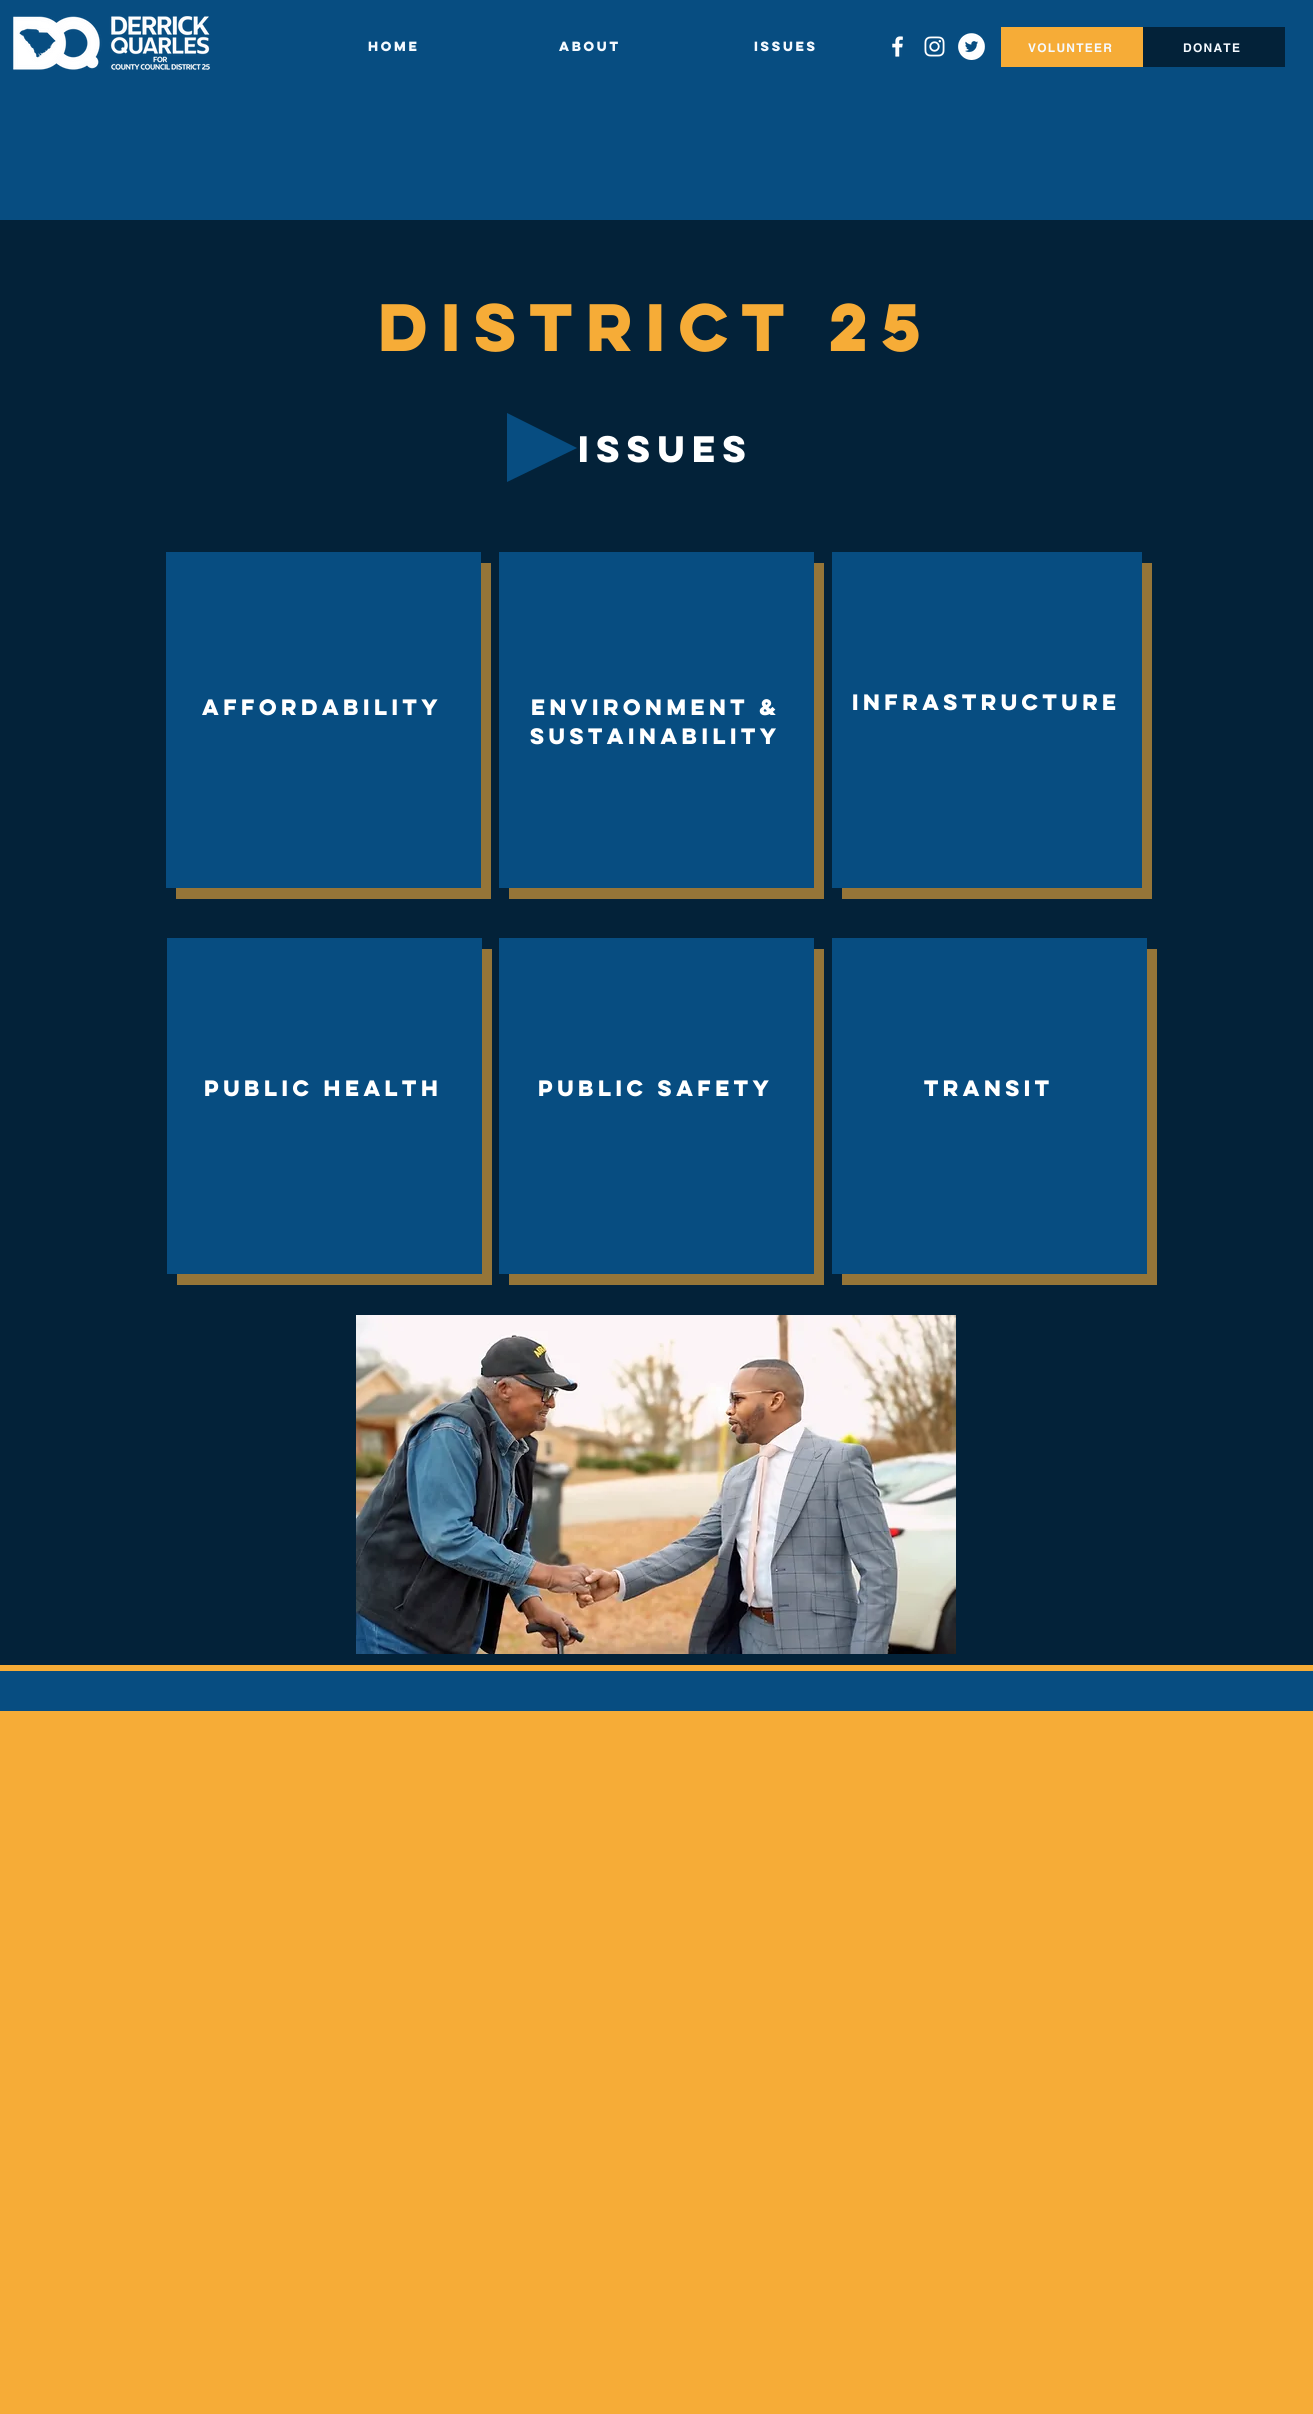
#include <cairo.h>
#include <math.h>
#include <stddef.h>

static cairo_t *c;
static void C(unsigned color){cairo_set_source_rgb(c, (color >> 16) / 255.0, (color >> 8 & 255) / 255.0, (color & 255) / 255.0);}
static void F(const char *family, double size, int italic, int bold){cairo_select_font_face(c, family, italic ? CAIRO_FONT_SLANT_ITALIC : CAIRO_FONT_SLANT_NORMAL,bold ? CAIRO_FONT_WEIGHT_BOLD : CAIRO_FONT_WEIGHT_NORMAL);cairo_set_font_size(c, size);}
static void T(double x, double y, const char *s){cairo_move_to(c, x, y);cairo_show_text(c, s);}
static void L(double x, double y, const char *s, double letter, double word){cairo_move_to(c, x, y);while (*s) {char ch[5] = {0};int n = 0;do ch[n++] = *s++; while ((*s & 0xC0) == 0x80);cairo_show_text(c, ch);cairo_rel_move_to(c, letter + word * (*ch == ' '), 0);}}
static void R(double x, double y, double w, double h){cairo_rectangle(c, x, y, w, h);cairo_fill(c);}
static void I(const char *path, double x, double y, double w, double h){cairo_surface_t *image = cairo_image_surface_create_from_png(path);cairo_save(c);cairo_set_source_surface(c, image, x, y);cairo_rectangle(c, x, y, w, h);cairo_fill(c);cairo_restore(c);cairo_surface_destroy(image);}
int main(void) {
cairo_surface_t *surface = cairo_image_surface_create(CAIRO_FORMAT_RGB24, 1313, 2414);
c = cairo_create(surface);
cairo_font_options_t *options = cairo_font_options_create();
cairo_font_options_set_hint_metrics(options, CAIRO_HINT_METRICS_OFF);
cairo_font_options_set_hint_style(options, CAIRO_HINT_STYLE_NONE);
cairo_set_font_options(c, options);
cairo_set_miter_limit(c, 4);
C(0xf6ac37);
cairo_paint(c);
C(0x074d81);
R(0,0,1313,220);
I("1.png",13,16,197,54);
F("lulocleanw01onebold",12,0,1);
C(0xf5faff);
T(368,51,"Home");
T(559,51,"About");
T(754,51,"Issues");
I("2.png",892,36,11,21);
I("3.png",924,36,21,21);
I("4.png",958,33,27,27);
C(0xf6ac37);
R(1001,27,142,40);
F("helvetica",12,0,1);
C(0xf5faff);
L(1028,52,"VOLUNTEER",1.25,0);
C(0x032239);
R(1143,27,142,40);
C(0xf5faff);
L(1183,52,"DONATE",1.25,0);
C(0x032239);
R(0,220,1313,1445);
F("lulocleanw01onebold",60,0,1);
C(0xf6ac37);
T(378,351,"District 25");
C(0x074d81);
cairo_new_path(c);
cairo_move_to(c,507,413);
cairo_line_to(c,577,448);
cairo_line_to(c,507,482);
cairo_close_path(c);
cairo_fill(c);
F("lulocleanw01onebold",33,0,1);
C(0xffffff);
T(578,462,"issues");
C(0x957538);
cairo_new_path(c);
cairo_move_to(c,176,888);
cairo_line_to(c,176,899);
cairo_line_to(c,491,899);
cairo_line_to(c,491,563);
cairo_line_to(c,481,563);
cairo_line_to(c,481,888);
cairo_close_path(c);
cairo_fill(c);
C(0x074d81);
R(166,552,315,336);
F("lulocleanw01onebold",20,0,1);
C(0xffffff);
T(202,715,"Affordability");
C(0x957538);
cairo_new_path(c);
cairo_move_to(c,509,888);
cairo_line_to(c,509,899);
cairo_line_to(c,824,899);
cairo_line_to(c,824,563);
cairo_line_to(c,814,563);
cairo_line_to(c,814,888);
cairo_close_path(c);
cairo_fill(c);
C(0x074d81);
R(499,552,315,336);
C(0xffffff);
T(531,715,"environment &");
T(530,744,"sustainability");
C(0x957538);
cairo_new_path(c);
cairo_move_to(c,842,888);
cairo_line_to(c,842,899);
cairo_line_to(c,1152,899);
cairo_line_to(c,1152,563);
cairo_line_to(c,1142,563);
cairo_line_to(c,1142,888);
cairo_close_path(c);
cairo_fill(c);
C(0x074d81);
R(832,552,310,336);
C(0xffffff);
T(852,710,"infrastructure");
C(0x957538);
cairo_new_path(c);
cairo_move_to(c,177,1274);
cairo_line_to(c,177,1285);
cairo_line_to(c,492,1285);
cairo_line_to(c,492,949);
cairo_line_to(c,482,949);
cairo_line_to(c,482,1274);
cairo_close_path(c);
cairo_fill(c);
C(0x074d81);
R(167,938,315,336);
C(0xffffff);
T(204,1096,"public health");
C(0x957538);
cairo_new_path(c);
cairo_move_to(c,509,1274);
cairo_line_to(c,509,1285);
cairo_line_to(c,824,1285);
cairo_line_to(c,824,949);
cairo_line_to(c,814,949);
cairo_line_to(c,814,1274);
cairo_close_path(c);
cairo_fill(c);
C(0x074d81);
R(499,938,315,336);
C(0xffffff);
T(538,1096,"public safety");
C(0x957538);
cairo_new_path(c);
cairo_move_to(c,842,1274);
cairo_line_to(c,842,1285);
cairo_line_to(c,1157,1285);
cairo_line_to(c,1157,949);
cairo_line_to(c,1147,949);
cairo_line_to(c,1147,1274);
cairo_close_path(c);
cairo_fill(c);
C(0x074d81);
R(832,938,315,336);
C(0xffffff);
T(924,1096,"transit");
I("5.png",356,1315,600,339);
C(0x074d81);
R(0,1671,1313,40);
cairo_surface_write_to_png(surface, "o.png");
cairo_font_options_destroy(options);
cairo_destroy(c);
cairo_surface_destroy(surface);
return 0;
}
